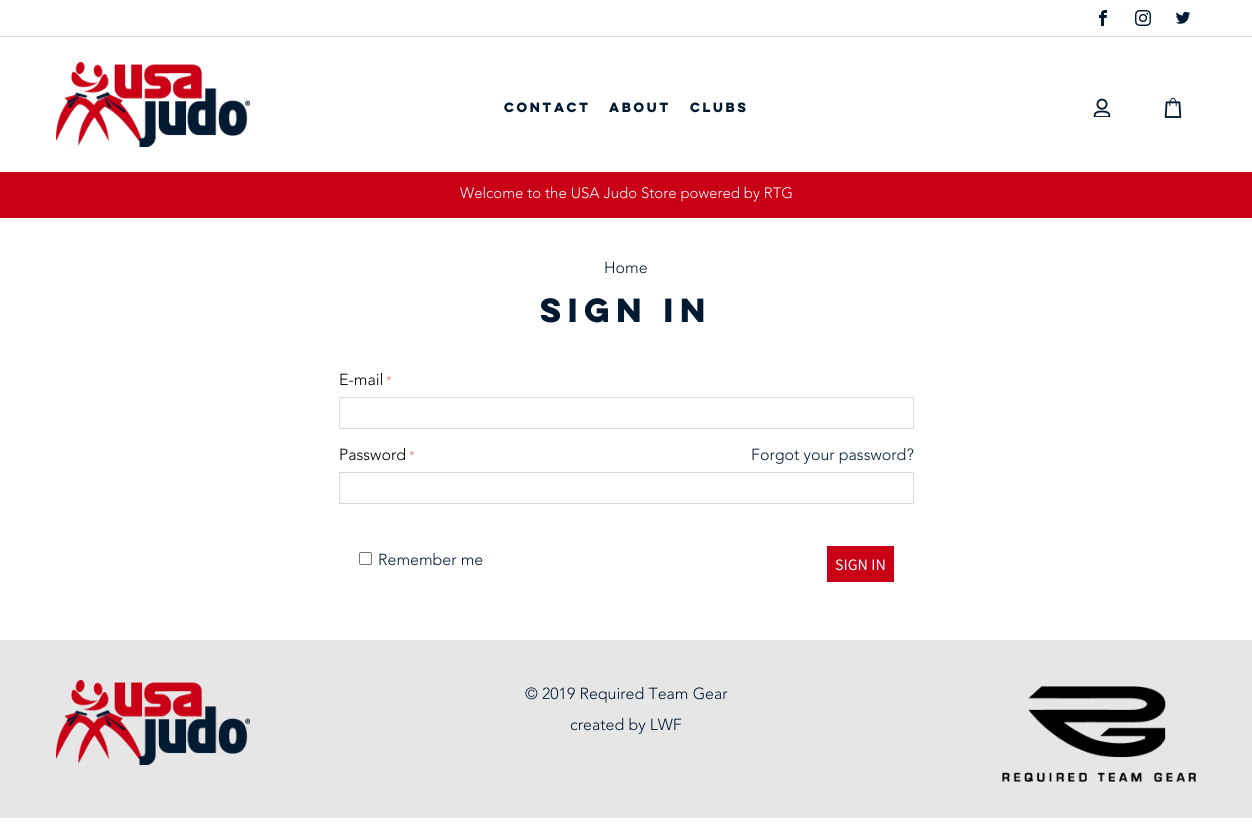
#include <cairo.h>
#include <math.h>
#include <stddef.h>

static cairo_t *c;
static void C(unsigned color){cairo_set_source_rgb(c, (color >> 16) / 255.0, (color >> 8 & 255) / 255.0, (color & 255) / 255.0);}
static void F(const char *family, double size, int italic, int bold){cairo_select_font_face(c, family, italic ? CAIRO_FONT_SLANT_ITALIC : CAIRO_FONT_SLANT_NORMAL,bold ? CAIRO_FONT_WEIGHT_BOLD : CAIRO_FONT_WEIGHT_NORMAL);cairo_set_font_size(c, size);}
static void T(double x, double y, const char *s){cairo_move_to(c, x, y);cairo_show_text(c, s);}
static void R(double x, double y, double w, double h){cairo_rectangle(c, x, y, w, h);cairo_fill(c);}
static void Q(double x, double y, double w, double h, double r){cairo_new_sub_path(c);cairo_arc(c, x + w - r, y + h - r, r, 0, M_PI / 2);cairo_arc(c, x + r, y + h - r, r, M_PI / 2, M_PI);cairo_arc(c, x + r, y + r, r, M_PI, 1.5 * M_PI);cairo_arc(c, x + w - r, y + r, r, 1.5 * M_PI, 2 * M_PI);cairo_close_path(c);}
static void I(const char *path, double x, double y, double w, double h){cairo_surface_t *image = cairo_image_surface_create_from_png(path);cairo_save(c);cairo_set_source_surface(c, image, x, y);cairo_rectangle(c, x, y, w, h);cairo_fill(c);cairo_restore(c);cairo_surface_destroy(image);}
int main(void) {
cairo_surface_t *surface = cairo_image_surface_create(CAIRO_FORMAT_RGB24, 1252, 828);
c = cairo_create(surface);
cairo_font_options_t *options = cairo_font_options_create();
cairo_font_options_set_hint_metrics(options, CAIRO_HINT_METRICS_OFF);
cairo_font_options_set_hint_style(options, CAIRO_HINT_STYLE_NONE);
cairo_set_font_options(c, options);
cairo_set_miter_limit(c, 4);
C(0xffffff);
cairo_paint(c);
C(0xd9d9d9);
R(0,36,1252,1);
I("1.png",1099,10,8,16);
I("2.png",1135,10,16,16);
I("3.png",1175,11,16,13);
I("4.png",56,62,194,85);
F("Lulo",12,0,0);
C(0x021a31);
T(504,112,"Contact");
T(609,112,"About");
T(690,112,"Clubs");
I("5.png",1093,98,18,19);
I("6.png",1164,97,18,21);
C(0xc90015);
R(0,172,1252,46);
F("Avenir",15,0,0);
C(0xffffff);
T(460,198,"Welcome to the USA Judo Store powered by RTG");
F("Avenir",16,0,0);
C(0x021a31);
T(604,273,"Home");
F("Lulo",30,0,0);
T(540,322,"SIGN IN");
F("Avenir",16,0,0);
C(0x000000);
T(339,385,"E-mail");
F("Avenir",13,0,0);
C(0xea7162);
T(386,385,"*");
cairo_rectangle(c,339.5,397.5,574,31);
C(0xd9d9d9);
cairo_set_line_width(c,1);
cairo_stroke(c);
F("Avenir",16,0,0);
C(0x000000);
T(339,460,"Password");
F("Avenir",13,0,0);
C(0xea7162);
T(409,460,"*");
F("Avenir",16,0,0);
C(0x021a31);
T(751,460,"Forgot your password?");
cairo_rectangle(c,339.5,472.5,574,31);
C(0xd9d9d9);
cairo_stroke(c);
Q(359.5,552.5,12,12,1.5);
C(0x767676);
cairo_stroke(c);
C(0x021a31);
T(378,565,"Remember me");
C(0xc90015);
R(827,546,67,36);
F("Source Sans Pro",16,0,0);
C(0xffffff);
T(835,570,"SIGN IN");
C(0xe6e6e6);
R(0,640,1252,178);
I("7.png",56,680,194,85);
F("Avenir",16,0,0);
C(0x021a31);
T(525,699,"© 2019 Required Team Gear");
T(570,730,"created by LWF");
I("8.png",1002,686,194,96);
cairo_surface_write_to_png(surface, "o.png");
cairo_font_options_destroy(options);
cairo_destroy(c);
cairo_surface_destroy(surface);
return 0;
}
